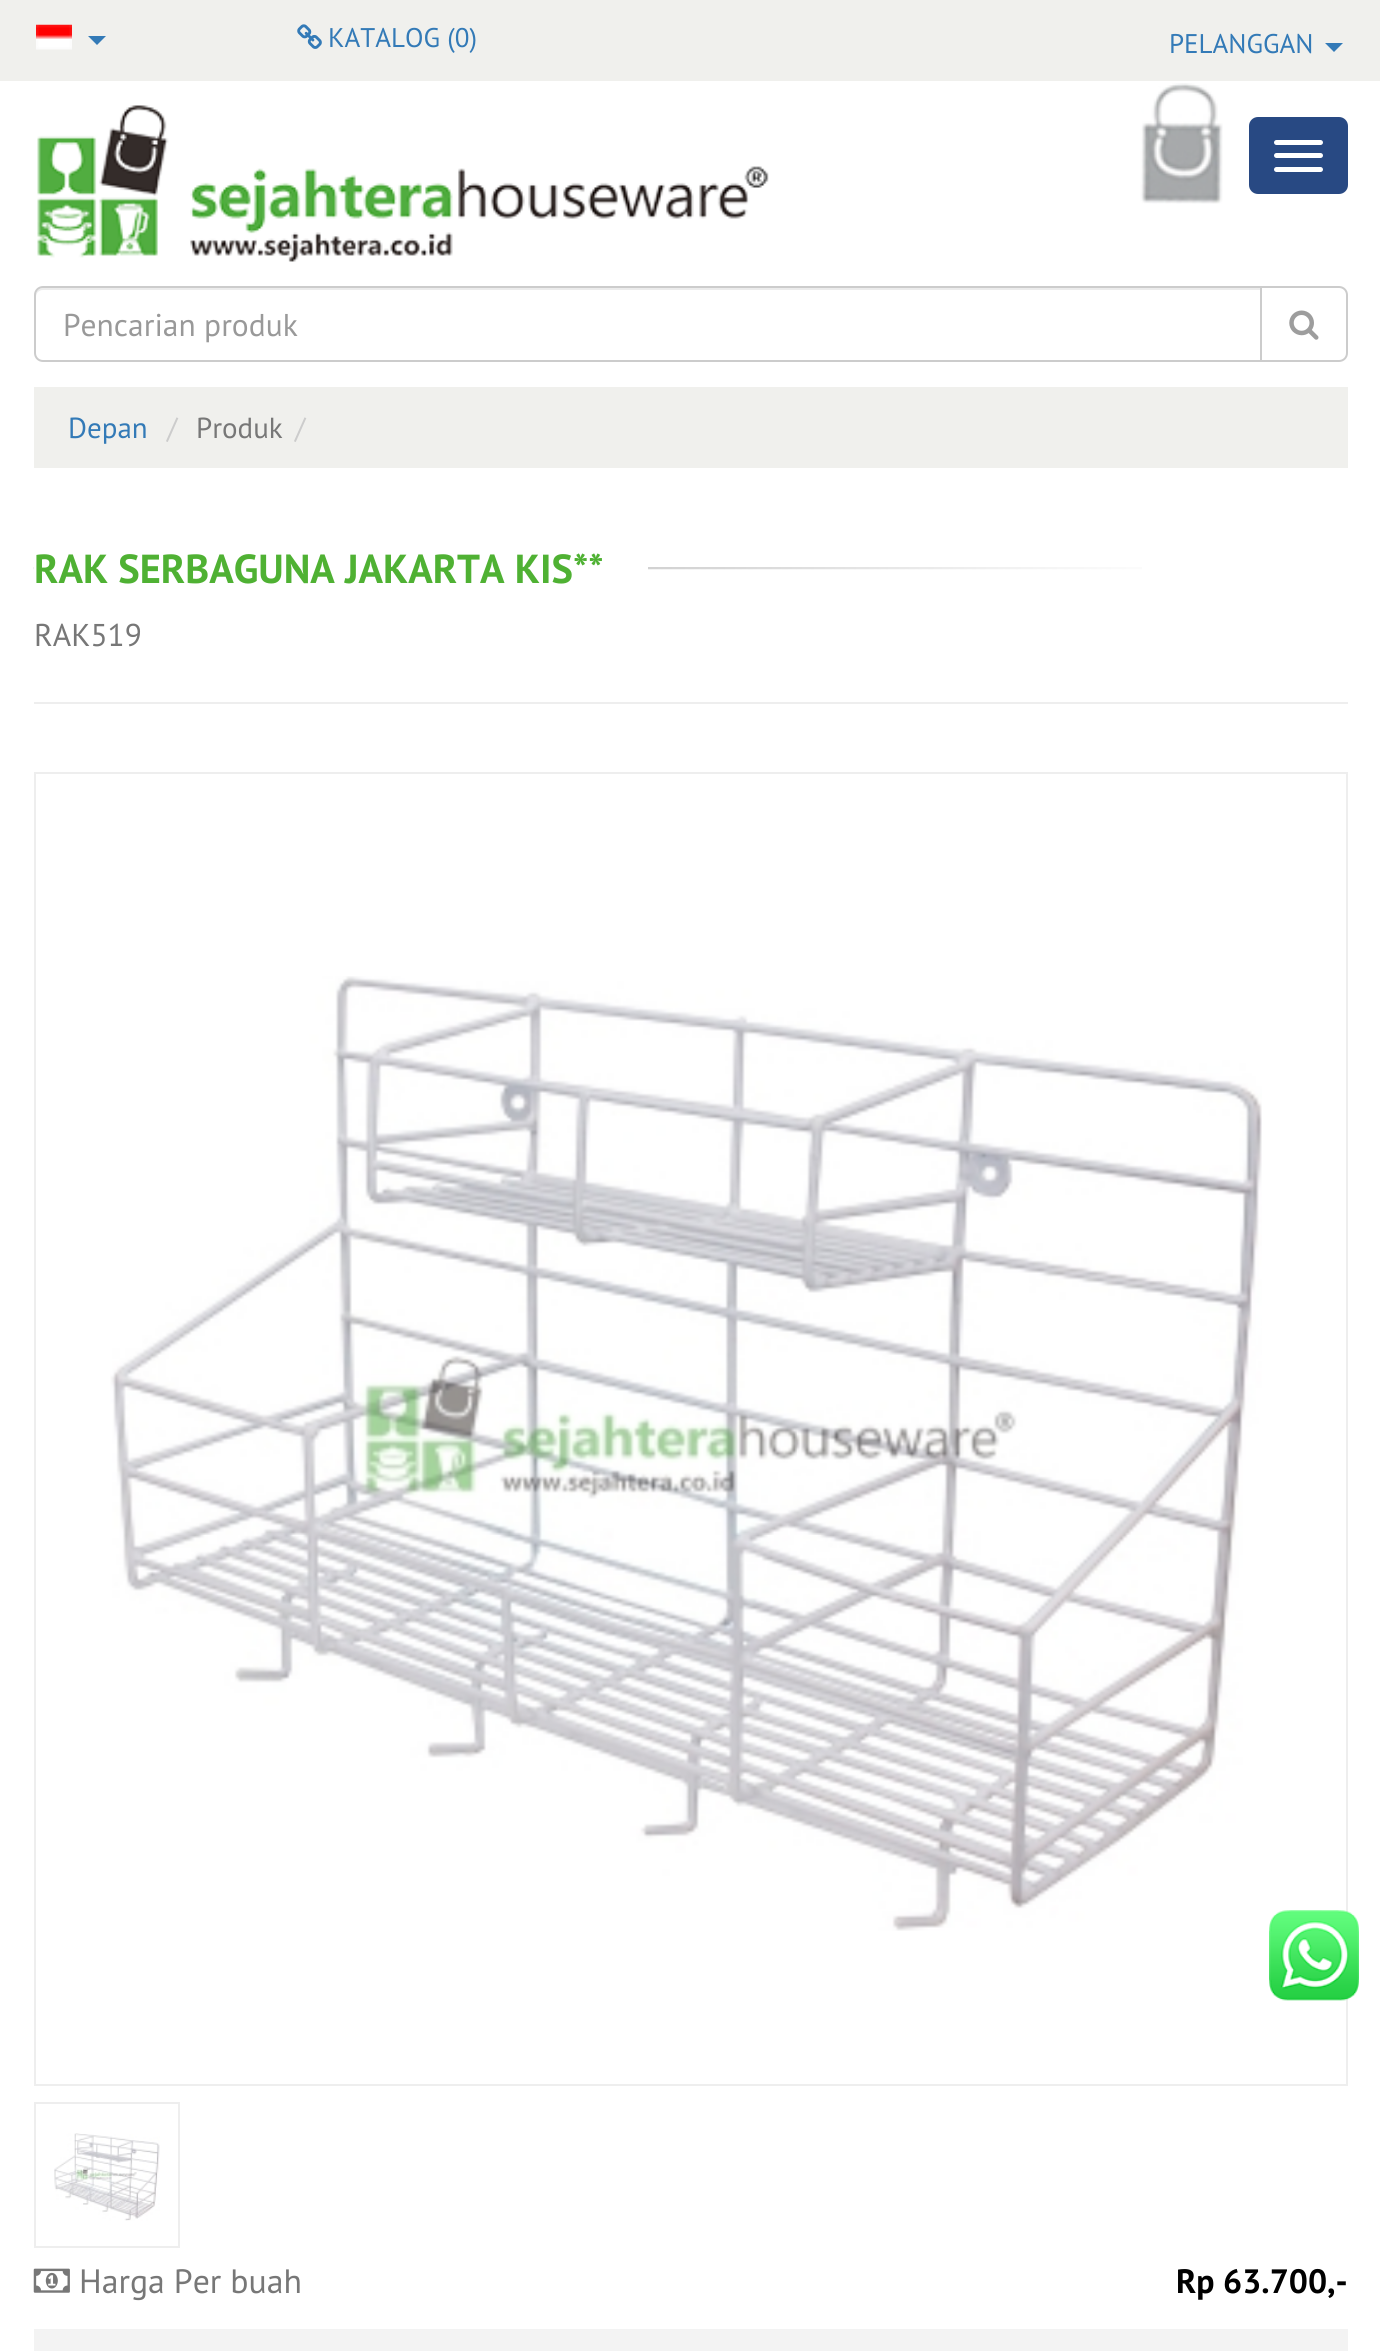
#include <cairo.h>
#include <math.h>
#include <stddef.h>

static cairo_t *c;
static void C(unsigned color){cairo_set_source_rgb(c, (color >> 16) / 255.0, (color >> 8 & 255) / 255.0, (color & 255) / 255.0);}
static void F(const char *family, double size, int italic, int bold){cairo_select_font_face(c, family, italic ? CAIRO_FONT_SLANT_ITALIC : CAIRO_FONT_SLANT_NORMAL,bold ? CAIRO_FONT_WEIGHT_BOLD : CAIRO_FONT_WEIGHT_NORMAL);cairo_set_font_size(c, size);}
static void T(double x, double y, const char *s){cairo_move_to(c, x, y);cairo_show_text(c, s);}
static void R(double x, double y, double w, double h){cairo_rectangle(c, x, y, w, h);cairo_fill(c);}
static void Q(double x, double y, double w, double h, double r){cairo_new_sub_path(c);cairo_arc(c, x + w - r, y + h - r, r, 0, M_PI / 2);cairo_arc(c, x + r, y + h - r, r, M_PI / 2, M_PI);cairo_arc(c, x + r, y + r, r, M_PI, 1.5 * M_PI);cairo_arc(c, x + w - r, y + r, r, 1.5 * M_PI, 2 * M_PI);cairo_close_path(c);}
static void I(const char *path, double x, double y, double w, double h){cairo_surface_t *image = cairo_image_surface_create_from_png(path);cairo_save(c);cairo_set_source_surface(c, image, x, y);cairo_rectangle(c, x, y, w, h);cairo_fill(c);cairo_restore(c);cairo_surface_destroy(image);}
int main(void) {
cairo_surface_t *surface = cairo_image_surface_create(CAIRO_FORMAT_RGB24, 1380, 2351);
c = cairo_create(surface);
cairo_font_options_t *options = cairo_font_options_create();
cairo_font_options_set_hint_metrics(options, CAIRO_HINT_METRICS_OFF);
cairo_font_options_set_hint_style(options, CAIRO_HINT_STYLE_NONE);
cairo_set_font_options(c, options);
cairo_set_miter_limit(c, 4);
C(0xffffff);
cairo_paint(c);
C(0xf0f0ed);
R(0,0,1380,81);
I("1.png",36,24,36,26);
C(0x337ab7);
cairo_new_path(c);
cairo_move_to(c,88,36);
cairo_line_to(c,106,36);
cairo_line_to(c,97,45);
cairo_close_path(c);
cairo_fill(c);
I("2.png",297,24,25,25);
F("PT Sans",27,0,0);
T(328,47,"KATALOG (0)");
T(1169,53,"PELANGGAN");
cairo_new_path(c);
cairo_move_to(c,1325,43);
cairo_line_to(c,1343,43);
cairo_line_to(c,1334,52);
cairo_close_path(c);
cairo_fill(c);
I("3.png",37,105,732,157);
I("4.png",1140,83,83,121);
C(0x284983);
Q(1249,117,99,77,9);
cairo_fill(c);
C(0xffffff);
Q(1274,140,49,5,2.5);
cairo_fill(c);
Q(1274,153,49,5,2.5);
cairo_fill(c);
Q(1274,167,49,5,2.5);
cairo_fill(c);
C(0xececec);
cairo_new_path(c);
cairo_move_to(c,43,290);
cairo_line_to(c,1260,290);
cairo_line_to(c,1260,288);
cairo_line_to(c,43,288);
cairo_curve_to(c,39,288,36,291,36,295);
cairo_line_to(c,36,297);
cairo_curve_to(c,36,293,39,290,43,290);
cairo_close_path(c);
cairo_fill(c);
cairo_new_path(c);
cairo_move_to(c,43,287);
cairo_line_to(c,1261,287);
cairo_line_to(c,1261,361);
cairo_line_to(c,43,361);
cairo_curve_to(c,38.5,361,35,357.5,35,353);
cairo_line_to(c,35,295);
cairo_curve_to(c,35,290.5,38.5,287,43,287);
cairo_close_path(c);
C(0xcccccc);
cairo_stroke(c);
F("PT Sans",31.5,0,0);
C(0x999999);
T(63,336,"Pencarian produk");
C(0xffffff);
cairo_new_path(c);
cairo_move_to(c,1261,287);
cairo_line_to(c,1339,287);
cairo_curve_to(c,1343.5,287,1347,290.5,1347,295);
cairo_line_to(c,1347,353);
cairo_curve_to(c,1347,357.5,1343.5,361,1339,361);
cairo_line_to(c,1261,361);
cairo_close_path(c);
cairo_fill_preserve(c);
C(0xcccccc);
cairo_stroke(c);
I("5.png",1289,310,30,30);
C(0xf0f0ed);
R(34,387,1314,81);
F("PT Sans",29,0,0);
C(0x337ab7);
T(68,438,"Depan");
C(0xcccccc);
T(167,438,"/");
C(0x777777);
T(196,438,"Produk");
C(0xcccccc);
T(295,438,"/");
I("6.png",33,567,1109,3);
C(0xffffff);
R(34,567,614,3);
F("PT Sans",40.5,0,1);
C(0x4fb133);
T(34,583,"RAK SERBAGUNA JAKARTA KIS**");
F("PT Sans",31.5,0,0);
C(0x777777);
T(34,646,"RAK519");
C(0xeeeeee);
R(34,702,1314,2);
cairo_rectangle(c,35,773,1312,1312);
cairo_stroke(c);
I("7.png",110,976,1152,955);
cairo_rectangle(c,35,2103,144,144);
cairo_stroke(c);
I("8.png",54,2133,106,88);
I("9.png",33,2268,37,25);
F("PT Sans",33.75,0,0);
C(0x777777);
T(79,2293,"Harga Per buah");
F("PT Sans",33.75,0,1);
C(0x000000);
T(1176,2293,"Rp 63.700,-");
C(0xf3f3f3);
R(34,2329,1314,22);
I("10.png",1269,1910,90,91);
cairo_surface_write_to_png(surface, "o.png");
cairo_font_options_destroy(options);
cairo_destroy(c);
cairo_surface_destroy(surface);
return 0;
}
